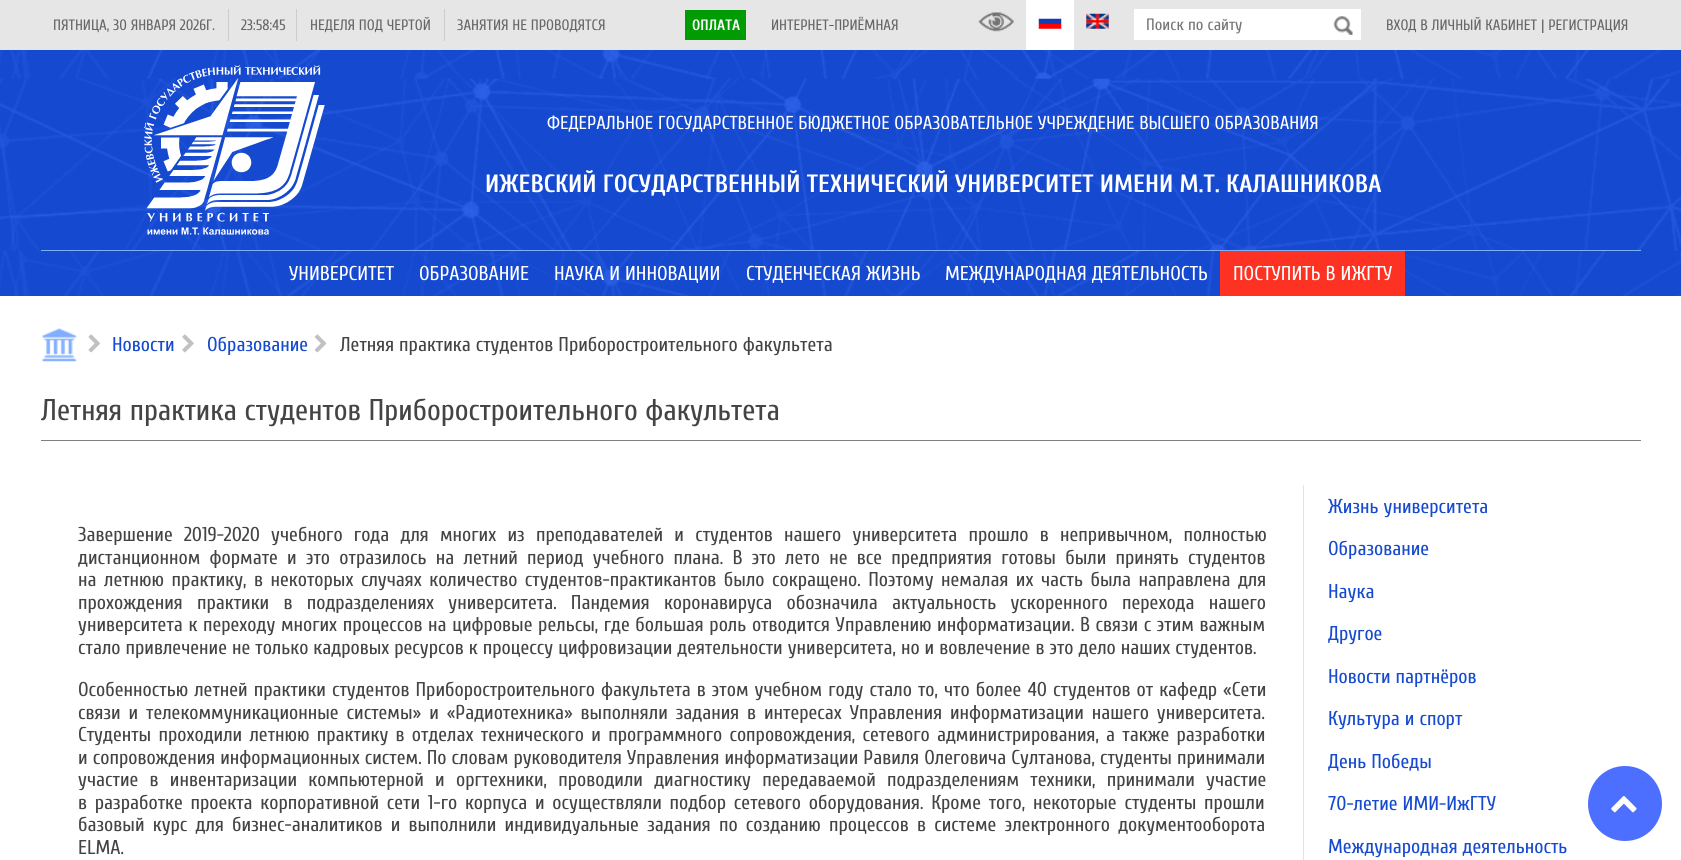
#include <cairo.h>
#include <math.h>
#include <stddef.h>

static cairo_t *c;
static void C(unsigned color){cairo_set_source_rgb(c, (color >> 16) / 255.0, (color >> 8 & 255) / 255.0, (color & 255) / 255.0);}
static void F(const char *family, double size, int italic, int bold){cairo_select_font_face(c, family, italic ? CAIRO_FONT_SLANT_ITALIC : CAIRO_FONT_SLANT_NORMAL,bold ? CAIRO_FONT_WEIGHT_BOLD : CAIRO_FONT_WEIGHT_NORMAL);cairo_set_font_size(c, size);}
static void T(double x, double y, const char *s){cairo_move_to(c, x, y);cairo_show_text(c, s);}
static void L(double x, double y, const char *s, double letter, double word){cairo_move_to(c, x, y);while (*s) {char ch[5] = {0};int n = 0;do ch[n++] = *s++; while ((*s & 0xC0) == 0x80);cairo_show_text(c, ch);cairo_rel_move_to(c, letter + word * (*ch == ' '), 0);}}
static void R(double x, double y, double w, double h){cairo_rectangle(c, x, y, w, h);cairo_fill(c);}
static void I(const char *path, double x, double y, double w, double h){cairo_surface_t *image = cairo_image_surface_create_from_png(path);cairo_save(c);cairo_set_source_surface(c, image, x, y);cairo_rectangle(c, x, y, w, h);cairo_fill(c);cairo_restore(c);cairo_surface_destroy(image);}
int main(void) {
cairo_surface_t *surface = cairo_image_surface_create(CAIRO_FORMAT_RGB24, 1681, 860);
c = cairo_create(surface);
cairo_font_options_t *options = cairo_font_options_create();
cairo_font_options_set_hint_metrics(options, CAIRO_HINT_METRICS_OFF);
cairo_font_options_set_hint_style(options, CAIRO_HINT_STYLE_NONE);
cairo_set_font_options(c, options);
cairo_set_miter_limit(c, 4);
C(0xffffff);
cairo_paint(c);
C(0xe6e6e6);
R(0,0,1681,50);
F("Cuprum",15,0,0);
C(0x666666);
T(53,30,"ПЯТНИЦА, 30 ЯНВАРЯ 2026Г.");
C(0xcccccc);
R(228,9,1,32);
C(0x666666);
T(241,30,"23:58:45");
C(0xcccccc);
R(296,9,1,32);
C(0x666666);
T(310,30,"НЕДЕЛЯ ПОД ЧЕРТОЙ");
C(0xcccccc);
R(444,9,1,32);
C(0x666666);
T(457,30,"ЗАНЯТИЯ НЕ ПРОВОДЯТСЯ");
C(0x019b04);
R(685,10,61,30);
F("Cuprum",15,0,1);
C(0xffffff);
T(692,30,"ОПЛАТА");
F("Cuprum",15,0,0);
C(0x666666);
T(771,30,"ИНТЕРНЕТ-ПРИЁМНАЯ");
I("1.png",978,12,36,20);
C(0xffffff);
R(1026,0,48,50);
I("2.png",1038,18,24,11);
I("3.png",1086,13,23,16);
R(1134,9,227,31);
F("Cuprum",16.5,0,0);
C(0x757575);
T(1146,30,"Поиск по сайту");
I("4.png",1333,16,20,19);
F("Cuprum",15,0,0);
C(0x666666);
T(1386,30,"ВХОД В ЛИЧНЫЙ КАБИНЕТ");
T(1541,30,"| РЕГИСТРАЦИЯ");
I("5.png",0,50,1681,201);
C(0x7fadff);
R(41,250,1600,1);
I("6.png",143,65,182,170);
F("Cuprum",18.75,0,0);
C(0xffffff);
T(547,129,"ФЕДЕРАЛЬНОЕ ГОСУДАРСТВЕННОЕ БЮДЖЕТНОЕ ОБРАЗОВАТЕЛЬНОЕ УЧРЕЖДЕНИЕ ВЫСШЕГО ОБРАЗОВАНИЯ");
F("Cuprum",25,0,1);
T(485,192,"ИЖЕВСКИЙ ГОСУДАРСТВЕННЫЙ ТЕХНИЧЕСКИЙ УНИВЕРСИТЕТ ИМЕНИ М.Т. КАЛАШНИКОВА");
I("7.png",0,251,1681,45);
F("Cuprum",20,0,0);
T(289,280,"УНИВЕРСИТЕТ");
T(419,280,"ОБРАЗОВАНИЕ");
T(554,280,"НАУКА И ИННОВАЦИИ");
T(746,280,"СТУДЕНЧЕСКАЯ ЖИЗНЬ");
T(945,280,"МЕЖДУНАРОДНАЯ ДЕЯТЕЛЬНОСТЬ");
C(0xfd3223);
R(1220,251,185,45);
C(0xffffff);
T(1233,280,"ПОСТУПИТЬ В ИЖГТУ");
I("8.png",42,328,35,34);
I("9.png",88,334,12,19);
C(0x164acf);
T(112,351,"Новости");
I("10.png",182,334,12,19);
T(207,351,"Образование");
I("11.png",314,334,13,19);
C(0x444444);
T(340,351,"Летняя практика студентов Приборостроительного факультета");
C(0x808080);
R(41,440,1600,1);
F("Cuprum",30,0,0);
C(0x444444);
T(41,420,"Летняя практика студентов Приборостроительного факультета");
F("Cuprum",20,0,0);
L(78,541,"Завершение 2019-2020 учебного года для многих из преподавателей и студентов нашего университета прошло в непривычном, полностью",0,6.25);
L(78,564,"дистанционном формате и это отразилось на летний период учебного плана. В это лето не все предприятия готовы были принять студентов",0,4.25);
L(78,586,"на летнюю практику, в некоторых случаях количество студентов-практикантов было сокращено. Поэтому немалая их часть была направлена для",0,2.5);
L(78,609,"прохождения практики в подразделениях университета. Пандемия коронавируса обозначила актуальность ускоренного перехода нашего",0,9.25);
L(78,631,"университета к переходу многих процессов на цифровые рельсы, где большая роль отводится Управлению информатизации. В связи с этим важным",0,.6);
T(78,654,"стало привлечение не только кадровых ресурсов к процессу цифровизации деятельности университета, но и вовлечение в это дело наших студентов.");
L(78,696,"Особенностью летней практики студентов Приборостроительного факультета в этом учебном году стало то, что более 40 студентов от кафедр «Сети",0,1);
L(78,719,"связи и телекоммуникационные системы» и «Радиотехника» выполняли задания в интересах Управления информатизации нашего университета.",0,2.9);
L(78,741,"Студенты проходили летнюю практику в отделах технического и программного сопровождения, сетевого администрирования, а также разработки",0,2.25);
L(78,764,"и сопровождения информационных систем. По словам руководителя Управления информатизации Равиля Олеговича Султанова, студенты принимали",0,.1);
L(78,786,"участие в инвентаризации компьютерной и оргтехники, проводили диагностику передаваемой подразделениям техники, принимали участие",0,6.25);
L(78,809,"в разработке проекта корпоративной сети 1-го корпуса и осуществляли подбор сетевого оборудования. Кроме того, некоторые студенты прошли",0,2.75);
L(78,831,"базовый курс для бизнес-аналитиков и выполнили индивидуальные задания по созданию процессов в системе электронного документооборота",0,3.25);
T(78,854,"ELMA.");
C(0xe3e3e3);
R(1303,485,1,375);
C(0x164acf);
T(1328,513,"Жизнь университета");
T(1328,555,"Образование");
T(1328,598,"Наука");
T(1328,640,"Другое");
T(1328,683,"Новости партнёров");
T(1328,725,"Культура и спорт");
T(1328,768,"День Победы");
T(1328,810,"70-летие ИМИ-ИжГТУ");
T(1328,853,"Международная деятельность");
C(0x4d6fff);
cairo_new_path(c);
cairo_move_to(c,1588,804);
cairo_curve_to(c,1588,783,1604,766,1625,766);
cairo_curve_to(c,1646,766,1662,783,1662,804);
cairo_curve_to(c,1662,824,1646,841,1625,841);
cairo_curve_to(c,1604,841,1588,824,1588,804);
cairo_close_path(c);
cairo_fill(c);
I("12.png",1611,796,26,17);
cairo_surface_write_to_png(surface, "o.png");
cairo_font_options_destroy(options);
cairo_destroy(c);
cairo_surface_destroy(surface);
return 0;
}
